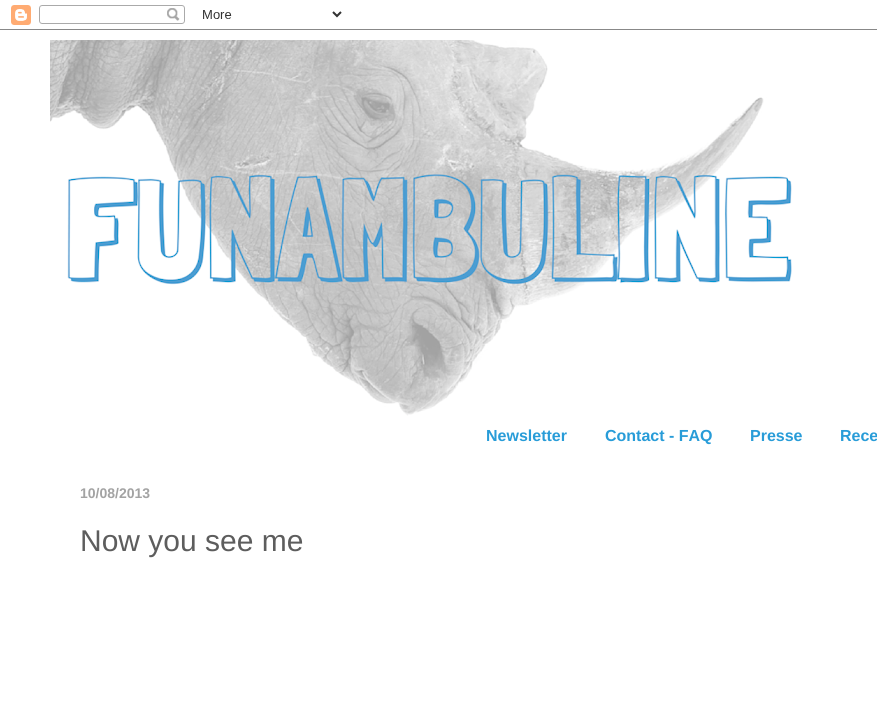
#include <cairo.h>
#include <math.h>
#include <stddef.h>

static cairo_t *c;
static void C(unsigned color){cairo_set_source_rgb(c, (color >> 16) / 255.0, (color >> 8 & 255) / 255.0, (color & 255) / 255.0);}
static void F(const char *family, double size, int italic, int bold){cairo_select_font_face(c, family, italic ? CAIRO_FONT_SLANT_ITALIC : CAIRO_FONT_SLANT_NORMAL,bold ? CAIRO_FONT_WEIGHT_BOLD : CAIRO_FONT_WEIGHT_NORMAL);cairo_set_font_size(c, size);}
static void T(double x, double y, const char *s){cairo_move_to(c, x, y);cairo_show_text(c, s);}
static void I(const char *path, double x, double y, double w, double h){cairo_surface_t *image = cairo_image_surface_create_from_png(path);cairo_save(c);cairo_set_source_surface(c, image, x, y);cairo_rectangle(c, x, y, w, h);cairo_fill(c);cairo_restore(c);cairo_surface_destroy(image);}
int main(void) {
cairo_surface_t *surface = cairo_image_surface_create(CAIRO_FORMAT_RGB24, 877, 713);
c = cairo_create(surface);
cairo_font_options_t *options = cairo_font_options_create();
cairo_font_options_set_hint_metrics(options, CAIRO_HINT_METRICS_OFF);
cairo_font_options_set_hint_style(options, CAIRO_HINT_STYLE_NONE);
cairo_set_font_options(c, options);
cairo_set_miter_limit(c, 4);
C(0xffffff);
cairo_paint(c);
I("1.png",0,5,877,25);
I("2.png",50,40,742,376);
F("Liberation Sans",16,0,1);
C(0x289cd8);
T(486,441,"Newsletter");
T(605,441,"Contact - FAQ");
T(750,441,"Presse");
T(840,441,"Rece");
F("Liberation Sans",14,0,1);
C(0xa3a3a3);
T(80,498,"10/08/2013");
F("Liberation Sans",30,0,0);
C(0x5d5d5d);
T(80,551,"Now you see me");
cairo_surface_write_to_png(surface, "o.png");
cairo_font_options_destroy(options);
cairo_destroy(c);
cairo_surface_destroy(surface);
return 0;
}
